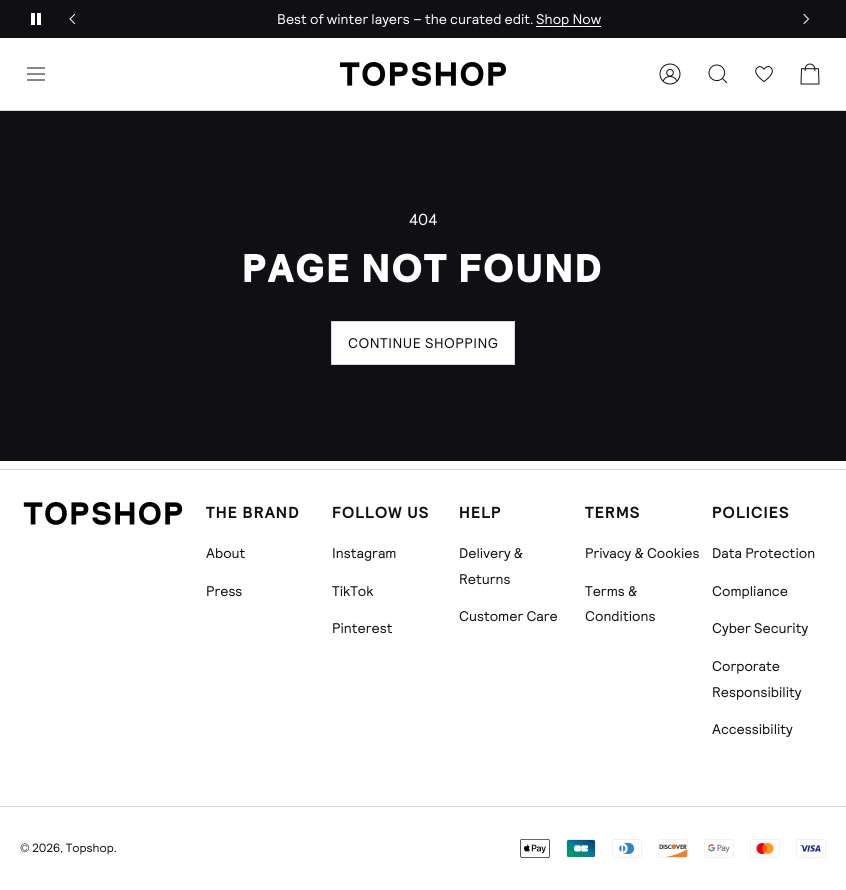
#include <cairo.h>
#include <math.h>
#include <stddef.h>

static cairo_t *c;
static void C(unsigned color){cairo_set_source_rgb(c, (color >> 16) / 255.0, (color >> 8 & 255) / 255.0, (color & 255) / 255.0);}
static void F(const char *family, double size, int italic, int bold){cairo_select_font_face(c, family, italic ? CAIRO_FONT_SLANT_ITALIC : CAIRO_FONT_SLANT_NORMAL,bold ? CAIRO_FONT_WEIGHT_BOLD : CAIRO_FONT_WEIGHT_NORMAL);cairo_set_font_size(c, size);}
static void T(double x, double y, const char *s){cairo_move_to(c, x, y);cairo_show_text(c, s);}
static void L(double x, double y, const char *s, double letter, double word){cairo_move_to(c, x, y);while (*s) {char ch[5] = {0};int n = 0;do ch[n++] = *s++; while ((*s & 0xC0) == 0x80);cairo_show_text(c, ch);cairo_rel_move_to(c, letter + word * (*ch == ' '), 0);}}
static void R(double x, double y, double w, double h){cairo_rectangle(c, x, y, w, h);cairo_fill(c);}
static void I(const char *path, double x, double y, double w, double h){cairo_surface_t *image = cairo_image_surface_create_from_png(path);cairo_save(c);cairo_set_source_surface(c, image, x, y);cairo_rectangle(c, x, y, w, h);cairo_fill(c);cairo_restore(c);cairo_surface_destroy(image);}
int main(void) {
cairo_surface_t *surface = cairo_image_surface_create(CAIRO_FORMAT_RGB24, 846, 890);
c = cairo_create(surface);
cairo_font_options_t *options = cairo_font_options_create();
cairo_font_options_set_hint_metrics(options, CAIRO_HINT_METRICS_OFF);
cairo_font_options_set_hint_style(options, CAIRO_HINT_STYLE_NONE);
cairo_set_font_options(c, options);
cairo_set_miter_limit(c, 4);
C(0xffffff);
cairo_paint(c);
C(0x0f0f14);
R(0,0,846,38);
C(0xffffff);
R(31,13,4,12);
R(37,13,4,12);
cairo_new_path(c);
cairo_move_to(c,74.5,23.5);
cairo_line_to(c,70,19);
cairo_line_to(c,74.5,14.5);
cairo_set_line_width(c,1);
cairo_set_line_cap(c,CAIRO_LINE_CAP_SQUARE);
cairo_stroke(c);
F("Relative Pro",14,0,0);
T(277,24,"Best of winter layers – the curated edit.");
R(536,26,65,1);
T(536,24,"Shop Now");
cairo_new_path(c);
cairo_move_to(c,804,23.5);
cairo_line_to(c,808.5,19);
cairo_line_to(c,804,14.5);
cairo_stroke(c);
C(0xd6d6e5);
R(0,110,846,1);
I("1.png",27,67,18,14);
I("2.png",340,62,166,24);
I("3.png",659,63,22,22);
I("4.png",708,64,20,20);
I("5.png",755,66,18,16);
I("6.png",800,63,20,22);
C(0x0f0f14);
R(0,111,846,350);
F("Relative Pro",16,0,0);
C(0xffffff);
T(409,225,"404");
F("Relative Pro Black",40,0,0);
L(242,282,"PAGE NOT FOUND",1.5,0);
cairo_rectangle(c,331.5,321.5,183,43);
cairo_fill_preserve(c);
C(0xd6d6e5);
cairo_set_line_cap(c,CAIRO_LINE_CAP_BUTT);
cairo_stroke(c);
F("Relative Pro",14,0,0);
C(0x0e0f14);
L(348,348,"CONTINUE SHOPPING",.5,0);
C(0xd6d6e5);
R(0,469,846,1);
R(0,806,846,1);
I("7.png",23,502,160,23);
F("Relative Pro",16,0,1);
C(0x0e0f14);
L(206,518,"THE BRAND",1,0);
F("Relative Pro",14,0,0);
T(206,558,"About");
T(206,596,"Press");
F("Relative Pro",16,0,1);
L(332,518,"FOLLOW US",1,0);
F("Relative Pro",14,0,0);
T(332,558,"Instagram");
T(332,596,"TikTok");
T(332,633,"Pinterest");
F("Relative Pro",16,0,1);
L(459,518,"HELP",1,0);
F("Relative Pro",14,0,0);
T(459,558,"Delivery &");
T(459,584,"Returns");
T(459,621,"Customer Care");
F("Relative Pro",16,0,1);
L(585,518,"TERMS",1,0);
F("Relative Pro",14,0,0);
T(585,558,"Privacy & Cookies");
T(585,596,"Terms &");
T(585,621,"Conditions");
F("Relative Pro",16,0,1);
L(712,518,"POLICIES",1,0);
F("Relative Pro",14,0,0);
T(712,558,"Data Protection");
T(712,596,"Compliance");
T(712,633,"Cyber Security");
T(712,671,"Corporate");
T(712,697,"Responsibility");
T(712,734,"Accessibility");
F("Relative Pro",12,0,0);
T(20,852,"© 2026, Topshop.");
I("8.png",520,839,30,19);
I("9.png",566,839,30,19);
I("10.png",612,839,30,19);
I("11.png",658,839,30,19);
I("12.png",704,839,30,19);
I("13.png",750,839,30,19);
I("14.png",796,839,30,19);
cairo_surface_write_to_png(surface, "o.png");
cairo_font_options_destroy(options);
cairo_destroy(c);
cairo_surface_destroy(surface);
return 0;
}
